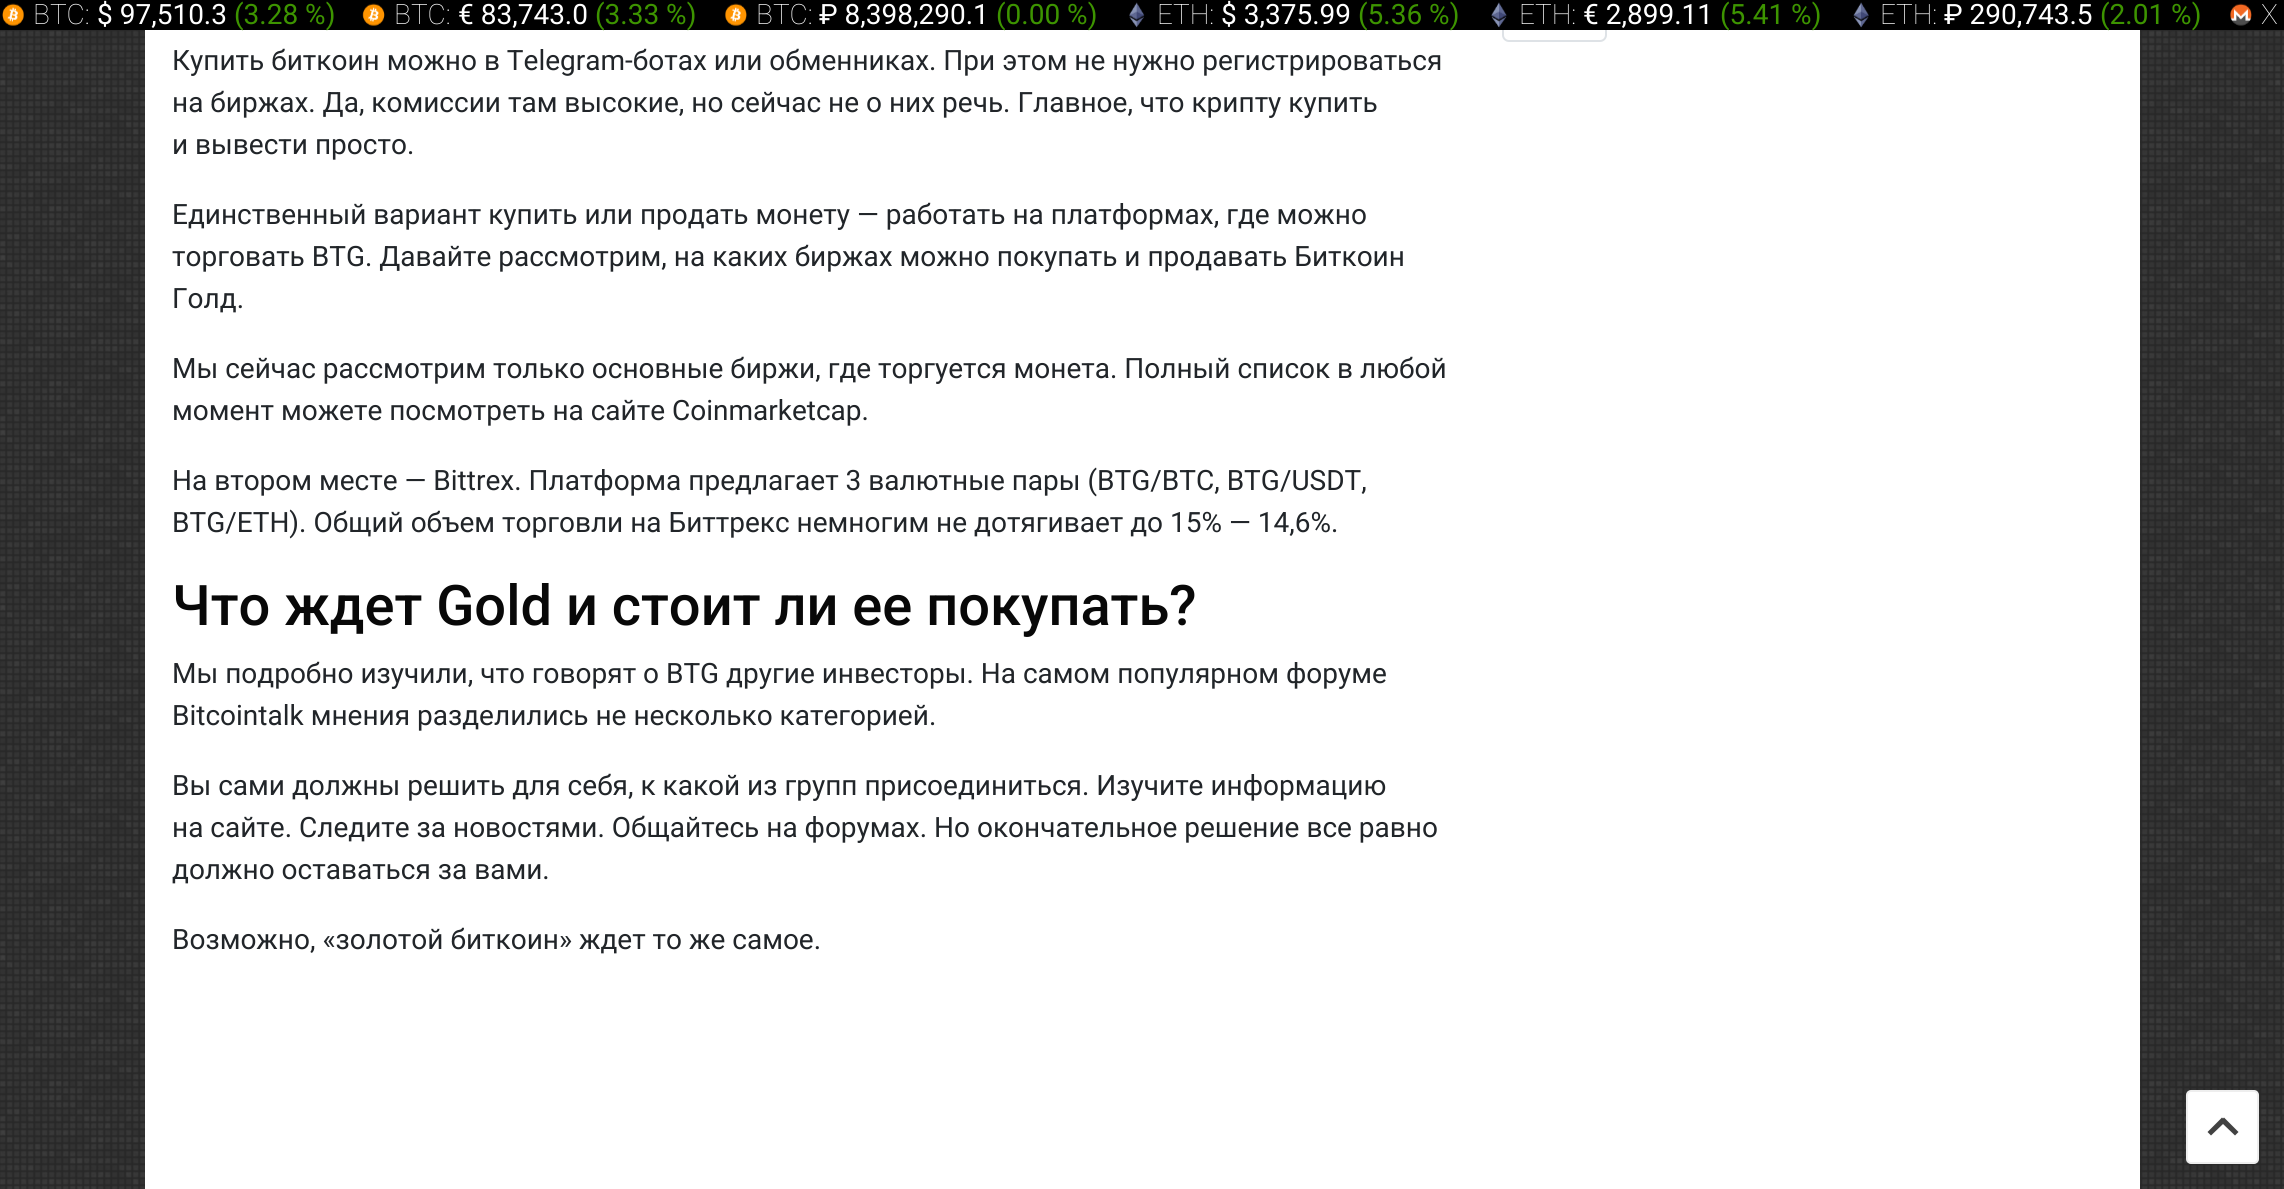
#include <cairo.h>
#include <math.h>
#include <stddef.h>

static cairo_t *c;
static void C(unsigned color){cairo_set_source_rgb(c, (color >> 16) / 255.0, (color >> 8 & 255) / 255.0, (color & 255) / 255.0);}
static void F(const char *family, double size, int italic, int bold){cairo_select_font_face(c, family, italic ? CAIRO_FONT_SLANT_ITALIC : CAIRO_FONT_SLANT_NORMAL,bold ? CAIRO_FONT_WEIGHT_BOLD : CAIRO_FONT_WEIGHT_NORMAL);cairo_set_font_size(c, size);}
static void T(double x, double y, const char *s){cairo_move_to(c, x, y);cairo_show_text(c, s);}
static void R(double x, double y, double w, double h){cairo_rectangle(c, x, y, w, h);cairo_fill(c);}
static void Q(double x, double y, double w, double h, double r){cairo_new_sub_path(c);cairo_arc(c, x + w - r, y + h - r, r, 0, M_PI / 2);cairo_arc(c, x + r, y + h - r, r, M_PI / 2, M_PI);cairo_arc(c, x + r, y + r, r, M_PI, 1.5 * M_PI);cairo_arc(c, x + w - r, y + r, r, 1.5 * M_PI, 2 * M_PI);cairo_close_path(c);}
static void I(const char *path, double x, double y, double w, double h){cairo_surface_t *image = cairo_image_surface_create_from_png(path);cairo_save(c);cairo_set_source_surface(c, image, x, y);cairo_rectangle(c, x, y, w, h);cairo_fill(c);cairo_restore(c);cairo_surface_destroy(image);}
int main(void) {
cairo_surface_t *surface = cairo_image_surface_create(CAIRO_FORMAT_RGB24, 2284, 1189);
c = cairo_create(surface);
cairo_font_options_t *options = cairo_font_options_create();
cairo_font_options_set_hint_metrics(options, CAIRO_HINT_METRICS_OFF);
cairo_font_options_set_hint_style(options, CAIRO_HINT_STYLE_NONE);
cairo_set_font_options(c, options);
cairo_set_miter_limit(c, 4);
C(0xffffff);
cairo_paint(c);
I("1.png",0,30,2284,1159);
C(0xffffff);
R(145,30,1995,1159);
Q(1503,-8,103,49,6);
C(0xdee2e6);
cairo_stroke(c);
C(0x000000);
R(0,0,2284,30);
I("2.png",2,3,22,23);
F("Roboto Thin",28,0,0);
C(0xffffff);
T(33,24,"BTC:");
F("Roboto",28,0,0);
T(97,24,"$ 97,510.3");
C(0x3d9400);
T(234,24,"(3.28 %)");
I("3.png",362,3,23,23);
F("Roboto Thin",28,0,0);
C(0xffffff);
T(394,24,"BTC:");
F("Roboto",28,0,0);
T(458,24,"€ 83,743.0");
C(0x3d9400);
T(595,24,"(3.33 %)");
I("4.png",725,3,22,23);
F("Roboto Thin",28,0,0);
C(0xffffff);
T(756,24,"BTC:");
F("Roboto",28,0,0);
T(819,24,"₽ 8,398,290.1");
C(0x3d9400);
T(996,24,"(0.00 %)");
I("5.png",1129,2,16,26);
F("Roboto Thin",28,0,0);
C(0xffffff);
T(1157,24,"ETH:");
F("Roboto",28,0,0);
T(1221,24,"$ 3,375.99");
C(0x3d9400);
T(1358,24,"(5.36 %)");
I("6.png",1491,2,16,26);
F("Roboto Thin",28,0,0);
C(0xffffff);
T(1519,24,"ETH:");
F("Roboto",28,0,0);
T(1583,24,"€ 2,899.11");
C(0x3d9400);
T(1720,24,"(5.41 %)");
I("7.png",1853,2,16,26);
F("Roboto Thin",28,0,0);
C(0xffffff);
T(1880,24,"ETH:");
F("Roboto",28,0,0);
T(1944,24,"₽ 290,743.5");
C(0x3d9400);
T(2100,24,"(2.01 %)");
I("8.png",2230,3,22,23);
F("Roboto Thin",28,0,0);
C(0xffffff);
T(2261,24,"X");
F("Roboto",28,0,0);
C(0x212529);
T(172,70,"Купить биткоин можно в Telegram-ботах или обменниках. При этом не нужно регистрироваться");
T(172,112,"на биржах. Да, комиссии там высокие, но сейчас не о них речь. Главное, что крипту купить");
T(172,154,"и вывести просто.");
T(172,224,"Единственный вариант купить или продать монету — работать на платформах, где можно");
T(172,266,"торговать BTG. Давайте рассмотрим, на каких биржах можно покупать и продавать Биткоин");
T(172,308,"Голд.");
T(172,378,"Мы сейчас рассмотрим только основные биржи, где торгуется монета. Полный список в любой");
T(172,420,"момент можете посмотреть на сайте Coinmarketcap.");
T(172,490,"На втором месте — Bittrex. Платформа предлагает 3 валютные пары (BTG/BTC, BTG/USDT,");
T(172,532,"BTG/ETH). Общий объем торговли на Биттрекс немногим не дотягивает до 15% — 14,6%.");
F("Roboto Medium",56,0,0);
C(0x080808);
T(172,625,"Что ждет Gold и стоит ли ее покупать?");
F("Roboto",28,0,0);
C(0x212529);
T(172,683,"Мы подробно изучили, что говорят о BTG другие инвесторы. На самом популярном форуме");
T(172,725,"Bitcointalk мнения разделились не несколько категорией.");
T(172,795,"Вы сами должны решить для себя, к какой из групп присоединиться. Изучите информацию");
T(172,837,"на сайте. Следите за новостями. Общайтесь на форумах. Но окончательное решение все равно");
T(172,879,"должно оставаться за вами.");
T(172,949,"Возможно, «золотой биткоин» ждет то же самое.");
C(0xffffff);
Q(2187,1091,71,72,4);
cairo_fill_preserve(c);
C(0xeeeeee);
cairo_stroke(c);
C(0x424242);
cairo_set_fill_rule(c,CAIRO_FILL_RULE_EVEN_ODD);
cairo_new_path(c);
cairo_move_to(c,2223,1118.5);
cairo_line_to(c,2222,1117.5);
cairo_line_to(c,2207.5,1132);
cairo_line_to(c,2211,1135.5);
cairo_line_to(c,2223,1124);
cairo_line_to(c,2235,1135.5);
cairo_line_to(c,2238.5,1132);
cairo_line_to(c,2224,1117.5);
cairo_close_path(c);
cairo_fill(c);
cairo_surface_write_to_png(surface, "o.png");
cairo_font_options_destroy(options);
cairo_destroy(c);
cairo_surface_destroy(surface);
return 0;
}
